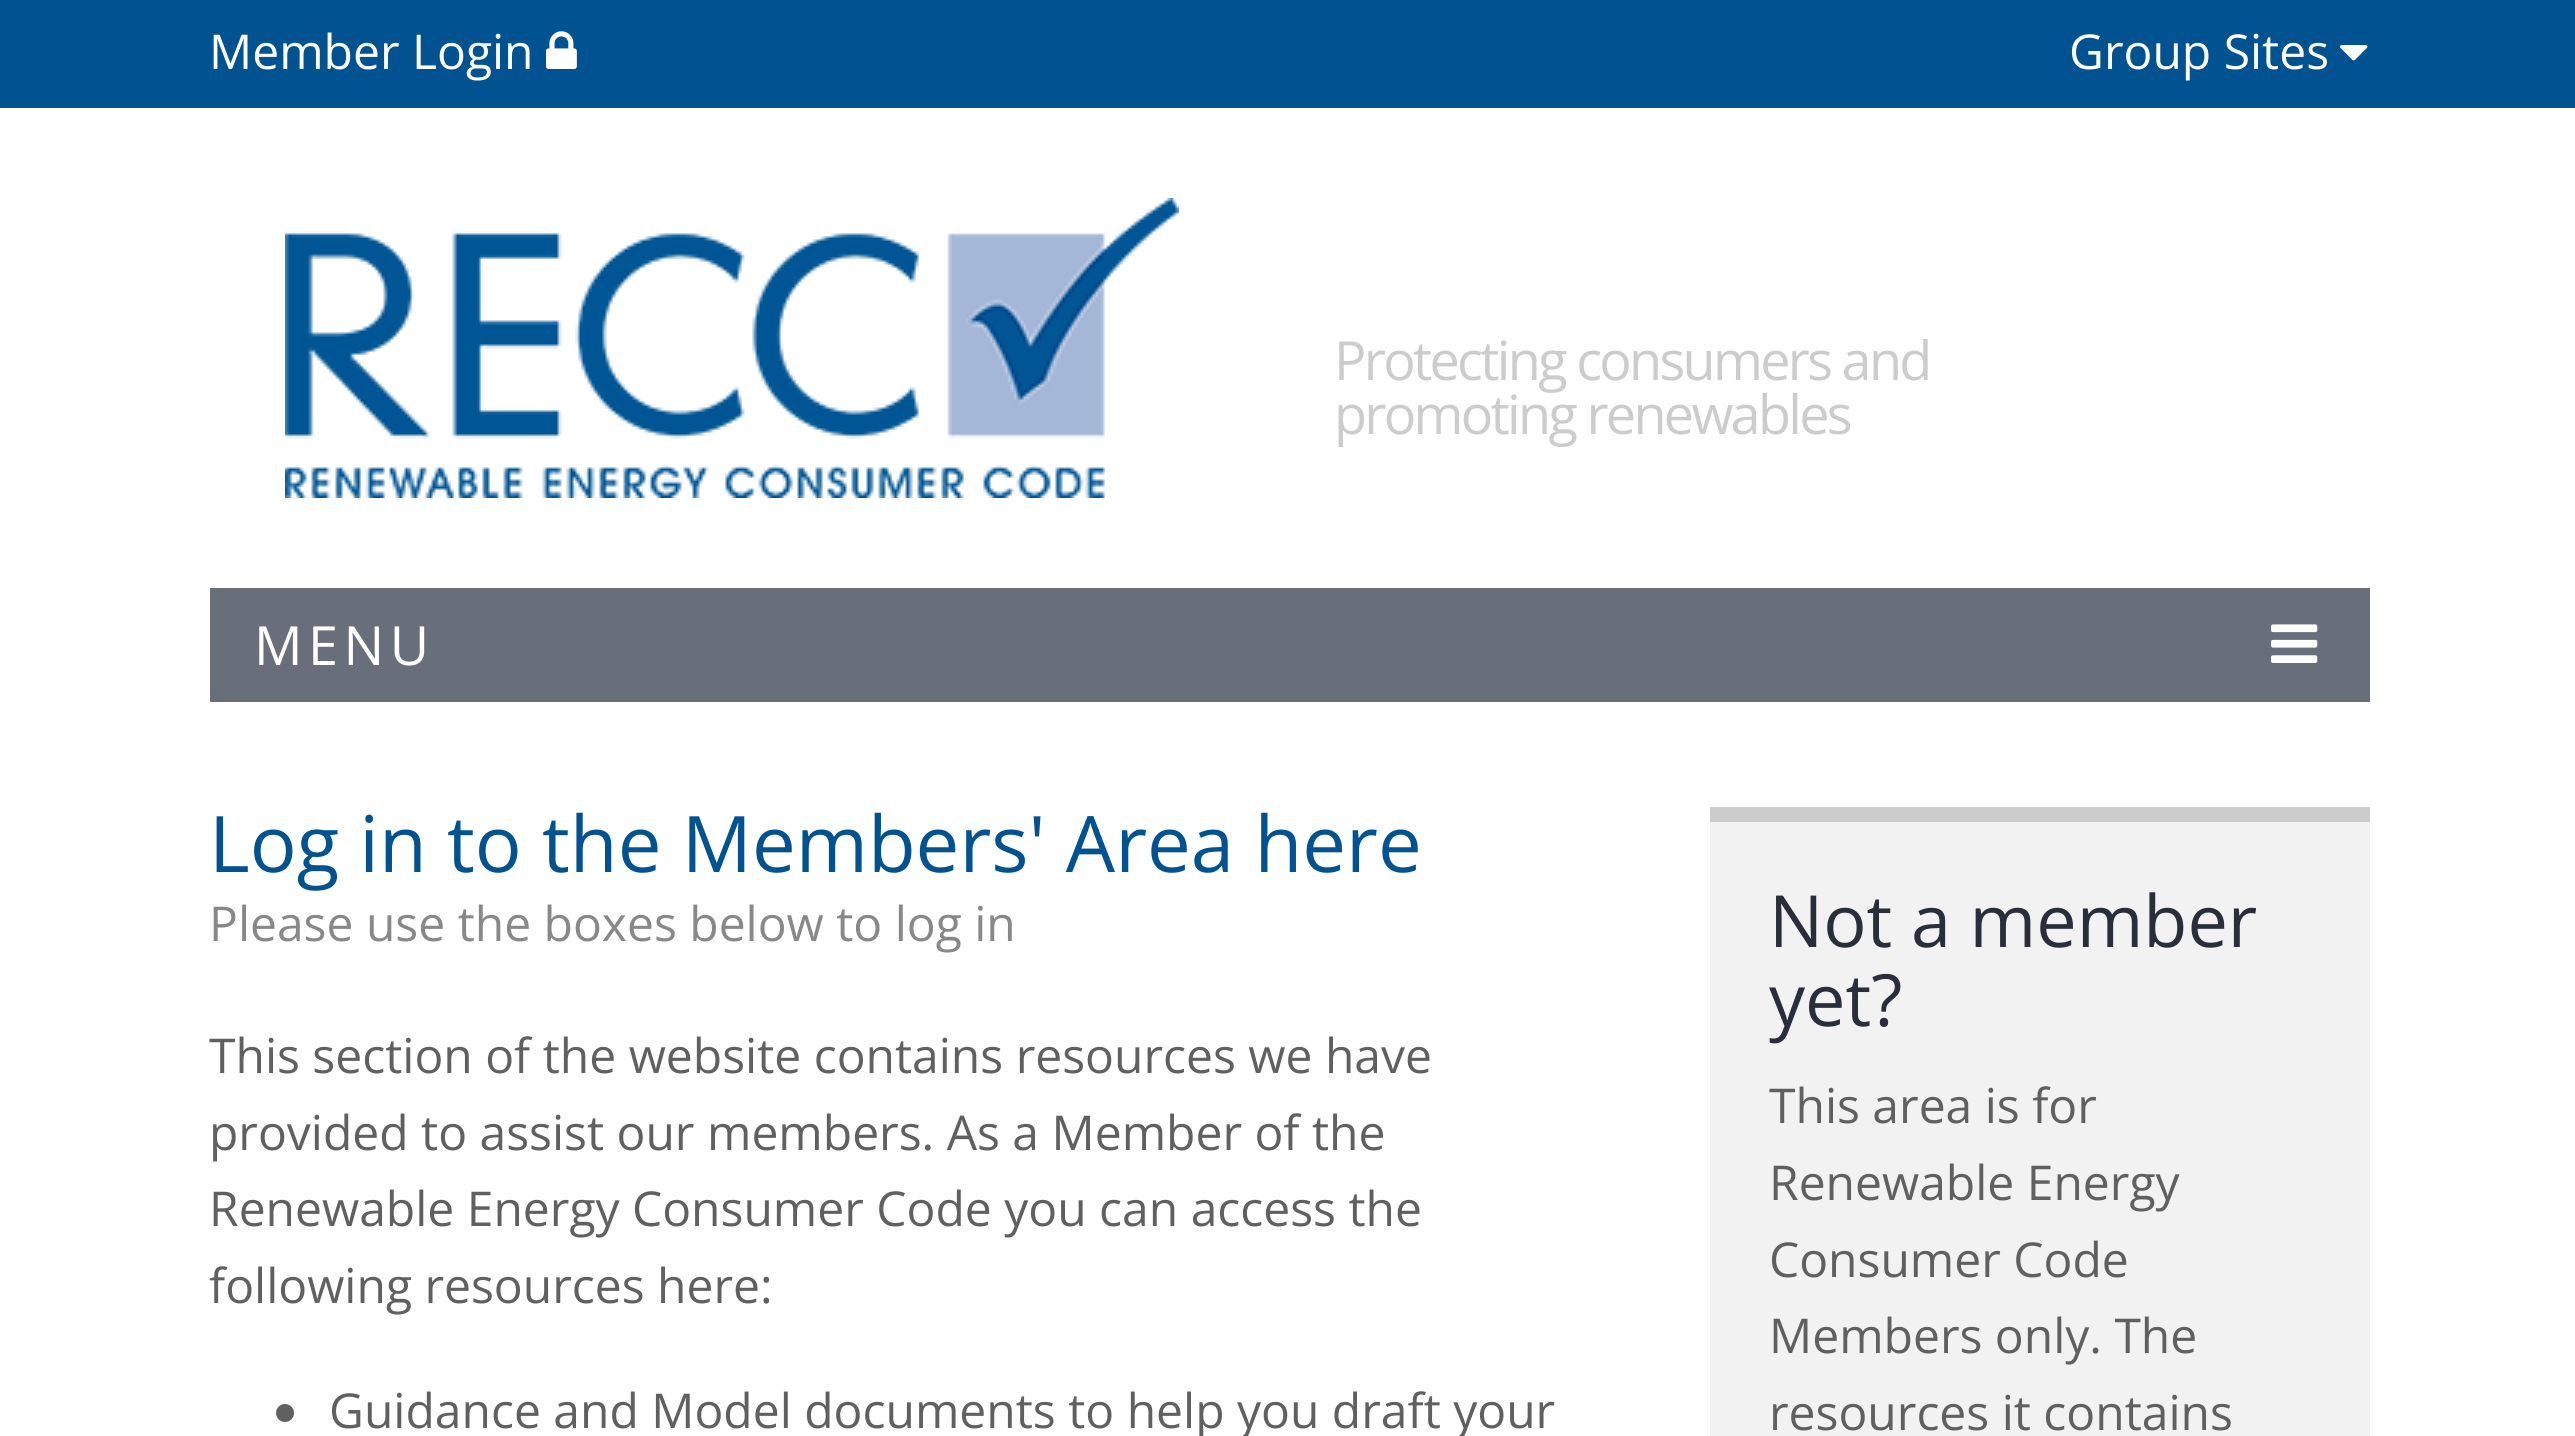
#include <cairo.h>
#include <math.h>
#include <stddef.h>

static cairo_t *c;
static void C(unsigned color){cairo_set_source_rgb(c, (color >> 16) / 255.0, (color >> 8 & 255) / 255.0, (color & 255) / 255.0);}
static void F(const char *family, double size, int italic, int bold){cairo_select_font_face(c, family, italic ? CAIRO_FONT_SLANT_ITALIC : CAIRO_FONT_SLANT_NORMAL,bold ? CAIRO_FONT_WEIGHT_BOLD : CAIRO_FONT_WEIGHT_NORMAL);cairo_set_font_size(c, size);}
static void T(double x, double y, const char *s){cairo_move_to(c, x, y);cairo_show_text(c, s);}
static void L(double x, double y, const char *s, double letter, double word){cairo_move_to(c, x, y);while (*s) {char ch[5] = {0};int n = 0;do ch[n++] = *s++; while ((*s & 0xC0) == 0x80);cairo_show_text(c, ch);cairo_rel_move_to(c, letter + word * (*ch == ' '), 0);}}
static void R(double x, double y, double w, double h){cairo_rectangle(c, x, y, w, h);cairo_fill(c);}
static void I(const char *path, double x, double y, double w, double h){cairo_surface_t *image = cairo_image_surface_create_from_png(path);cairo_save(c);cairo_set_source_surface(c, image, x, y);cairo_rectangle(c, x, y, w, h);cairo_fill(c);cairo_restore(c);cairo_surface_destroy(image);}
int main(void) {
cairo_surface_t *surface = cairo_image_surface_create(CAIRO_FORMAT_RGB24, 2575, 1436);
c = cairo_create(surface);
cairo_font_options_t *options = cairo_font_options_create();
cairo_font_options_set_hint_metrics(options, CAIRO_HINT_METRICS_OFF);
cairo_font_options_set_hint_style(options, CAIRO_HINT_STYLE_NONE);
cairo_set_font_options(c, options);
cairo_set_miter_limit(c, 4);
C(0xffffff);
cairo_paint(c);
C(0x015291);
R(0,0,2575,108);
F("Open Sans",48,0,0);
C(0xffffff);
T(209,69,"Member Login");
I("1.png",546,31,31,38);
T(2069,69,"Group Sites");
I("2.png",2340,45,28,16);
I("3.png",285,198,894,300);
F("Open Sans",54,0,0);
C(0xcccccc);
L(1334,380,"Protecting consumers and",-2.7,0);
L(1334,434,"promoting renewables",-2.7,0);
C(0x686e7a);
R(210,588,2160,114);
C(0xffffff);
L(254,665,"MENU",5.5,0);
I("4.png",2271,624,47,39);
F("Open Sans",78,0,0);
C(0x015291);
T(209,872,"Log in to the Members' Area here");
F("Open Sans",48,0,0);
C(0x888888);
T(209,941,"Please use the boxes below to log in");
C(0x606060);
T(209,1073,"This section of the website contains resources we have");
T(209,1150,"provided to assist our members. As a Member of the");
T(209,1226,"Renewable Energy Consumer Code you can access the");
T(209,1303,"following resources here:");
cairo_new_path(c);
cairo_arc(c,285,1413,9,0,2 * M_PI);
cairo_fill(c);
T(329,1428,"Guidance and Model documents to help you draft your");
C(0xf2f2f2);
R(1710,822,660,614);
C(0xcccccc);
R(1710,807,660,15);
F("Open Sans",72,0,0);
C(0x292e3a);
T(1769,947,"Not a member");
T(1769,1026,"yet?");
F("Open Sans",48,0,0);
C(0x606060);
T(1769,1123,"This area is for");
T(1769,1200,"Renewable Energy");
T(1769,1277,"Consumer Code");
T(1769,1353,"Members only. The");
T(1769,1430,"resources it contains");
cairo_surface_write_to_png(surface, "o.png");
cairo_font_options_destroy(options);
cairo_destroy(c);
cairo_surface_destroy(surface);
return 0;
}
